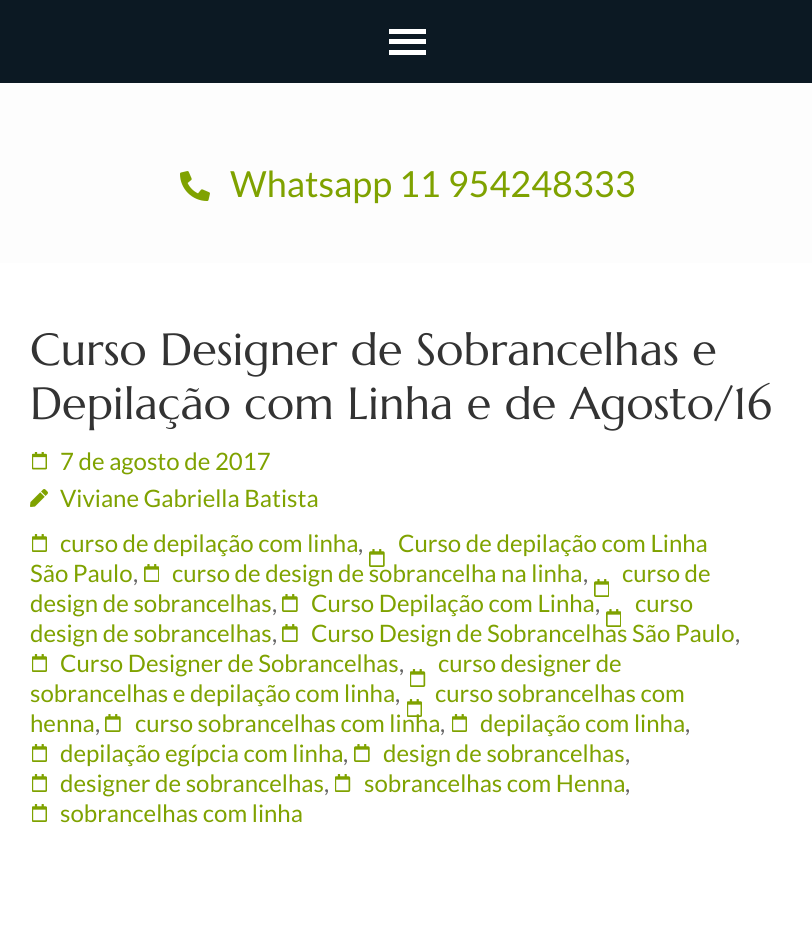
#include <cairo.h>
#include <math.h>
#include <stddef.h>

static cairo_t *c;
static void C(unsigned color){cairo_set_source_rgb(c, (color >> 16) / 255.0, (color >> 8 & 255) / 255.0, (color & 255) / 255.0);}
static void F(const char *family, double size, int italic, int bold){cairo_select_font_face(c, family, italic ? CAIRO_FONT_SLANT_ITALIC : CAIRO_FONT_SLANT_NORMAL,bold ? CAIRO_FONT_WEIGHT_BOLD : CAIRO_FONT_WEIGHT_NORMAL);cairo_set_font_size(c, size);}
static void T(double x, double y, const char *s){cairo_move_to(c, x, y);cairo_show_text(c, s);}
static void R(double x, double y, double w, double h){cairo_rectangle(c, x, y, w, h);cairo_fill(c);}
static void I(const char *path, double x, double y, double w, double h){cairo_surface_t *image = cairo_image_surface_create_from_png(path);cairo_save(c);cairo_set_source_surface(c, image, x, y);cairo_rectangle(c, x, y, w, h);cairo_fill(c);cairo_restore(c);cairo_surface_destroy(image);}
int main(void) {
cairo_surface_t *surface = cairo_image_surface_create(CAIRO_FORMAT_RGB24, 812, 942);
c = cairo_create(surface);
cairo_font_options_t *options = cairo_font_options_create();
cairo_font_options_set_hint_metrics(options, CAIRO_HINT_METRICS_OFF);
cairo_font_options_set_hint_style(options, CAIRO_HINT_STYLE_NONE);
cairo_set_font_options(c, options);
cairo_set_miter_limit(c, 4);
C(0x0c1923);
cairo_paint(c);
C(0xffffff);
R(389,29,37,5);
R(389,39,37,5);
R(389,50,37,5);
R(0,263,812,679);
C(0xfdfdfd);
R(0,83,812,180);
I("1.png",180,171,30,30);
F("Lato",36,0,0);
C(0x7fa200);
T(230,197,"Whatsapp 11 954248333");
F("Marcellus",45,0,0);
C(0x333333);
T(30,365,"Curso Designer de Sobrancelhas e");
T(30,419,"Depilação com Linha e de Agosto/16");
I("2.png",32,452,15,18);
F("Lato",24,0,0);
C(0x7fa200);
T(60,470,"7 de agosto de 2017");
I("3.png",30,489,18,18);
T(60,507,"Viviane Gabriella Batista");
I("4.png",369,549,16,18);
T(398,552,"Curso de depilação com Linha");
T(30,582,"São Paulo");
I("5.png",32,534,15,18);
T(60,552,"curso de depilação com linha");
C(0x666666);
T(358,552,",");
C(0x7fa200);
T(622,582,"curso de");
I("6.png",594,579,15,18);
T(30,612,"design de sobrancelhas");
C(0x666666);
T(133,582,",");
I("6.png",144,564,15,18);
C(0x7fa200);
T(172,582,"curso de design de sobrancelha na linha");
C(0x666666);
T(583,582,",");
I("4.png",282,594,16,18);
C(0x7fa200);
T(311,612,"Curso Depilação com Linha");
T(635,612,"curso");
I("6.png",606,609,15,18);
T(30,642,"design de sobrancelhas");
C(0x666666);
T(272,612,",");
T(595,612,",");
T(272,642,",");
I("4.png",282,624,16,18);
C(0x7fa200);
T(311,642,"Curso Design de Sobrancelhas São Paulo");
C(0x666666);
T(735,642,",");
I("7.png",410,669,16,18);
C(0x7fa200);
T(438,672,"curso designer de");
T(30,702,"sobrancelhas e depilação com linha");
I("5.png",32,654,15,18);
T(60,672,"Curso Designer de Sobrancelhas");
C(0x666666);
T(399,672,",");
C(0x7fa200);
T(435,702,"curso sobrancelhas com");
I("5.png",407,699,15,18);
T(30,732,"henna");
C(0x666666);
T(395,702,",");
T(95,732,",");
I("4.png",105,714,16,18);
C(0x7fa200);
T(135,732,"curso sobrancelhas com linha");
C(0x666666);
T(440,732,",");
I("5.png",452,714,15,18);
C(0x7fa200);
T(480,732,"depilação com linha");
C(0x666666);
T(685,732,",");
I("5.png",32,744,15,18);
C(0x7fa200);
T(60,762,"depilação egípcia com linha");
C(0x666666);
T(343,762,",");
I("4.png",354,744,16,18);
C(0x7fa200);
T(383,762,"design de sobrancelhas");
C(0x666666);
T(625,762,",");
I("5.png",32,774,15,18);
C(0x7fa200);
T(60,792,"designer de sobrancelhas");
C(0x666666);
T(324,792,",");
I("7.png",335,774,16,18);
C(0x7fa200);
T(364,792,"sobrancelhas com Henna");
C(0x666666);
T(625,792,",");
I("5.png",32,804,15,18);
C(0x7fa200);
T(60,822,"sobrancelhas com linha");
cairo_surface_write_to_png(surface, "o.png");
cairo_font_options_destroy(options);
cairo_destroy(c);
cairo_surface_destroy(surface);
return 0;
}
